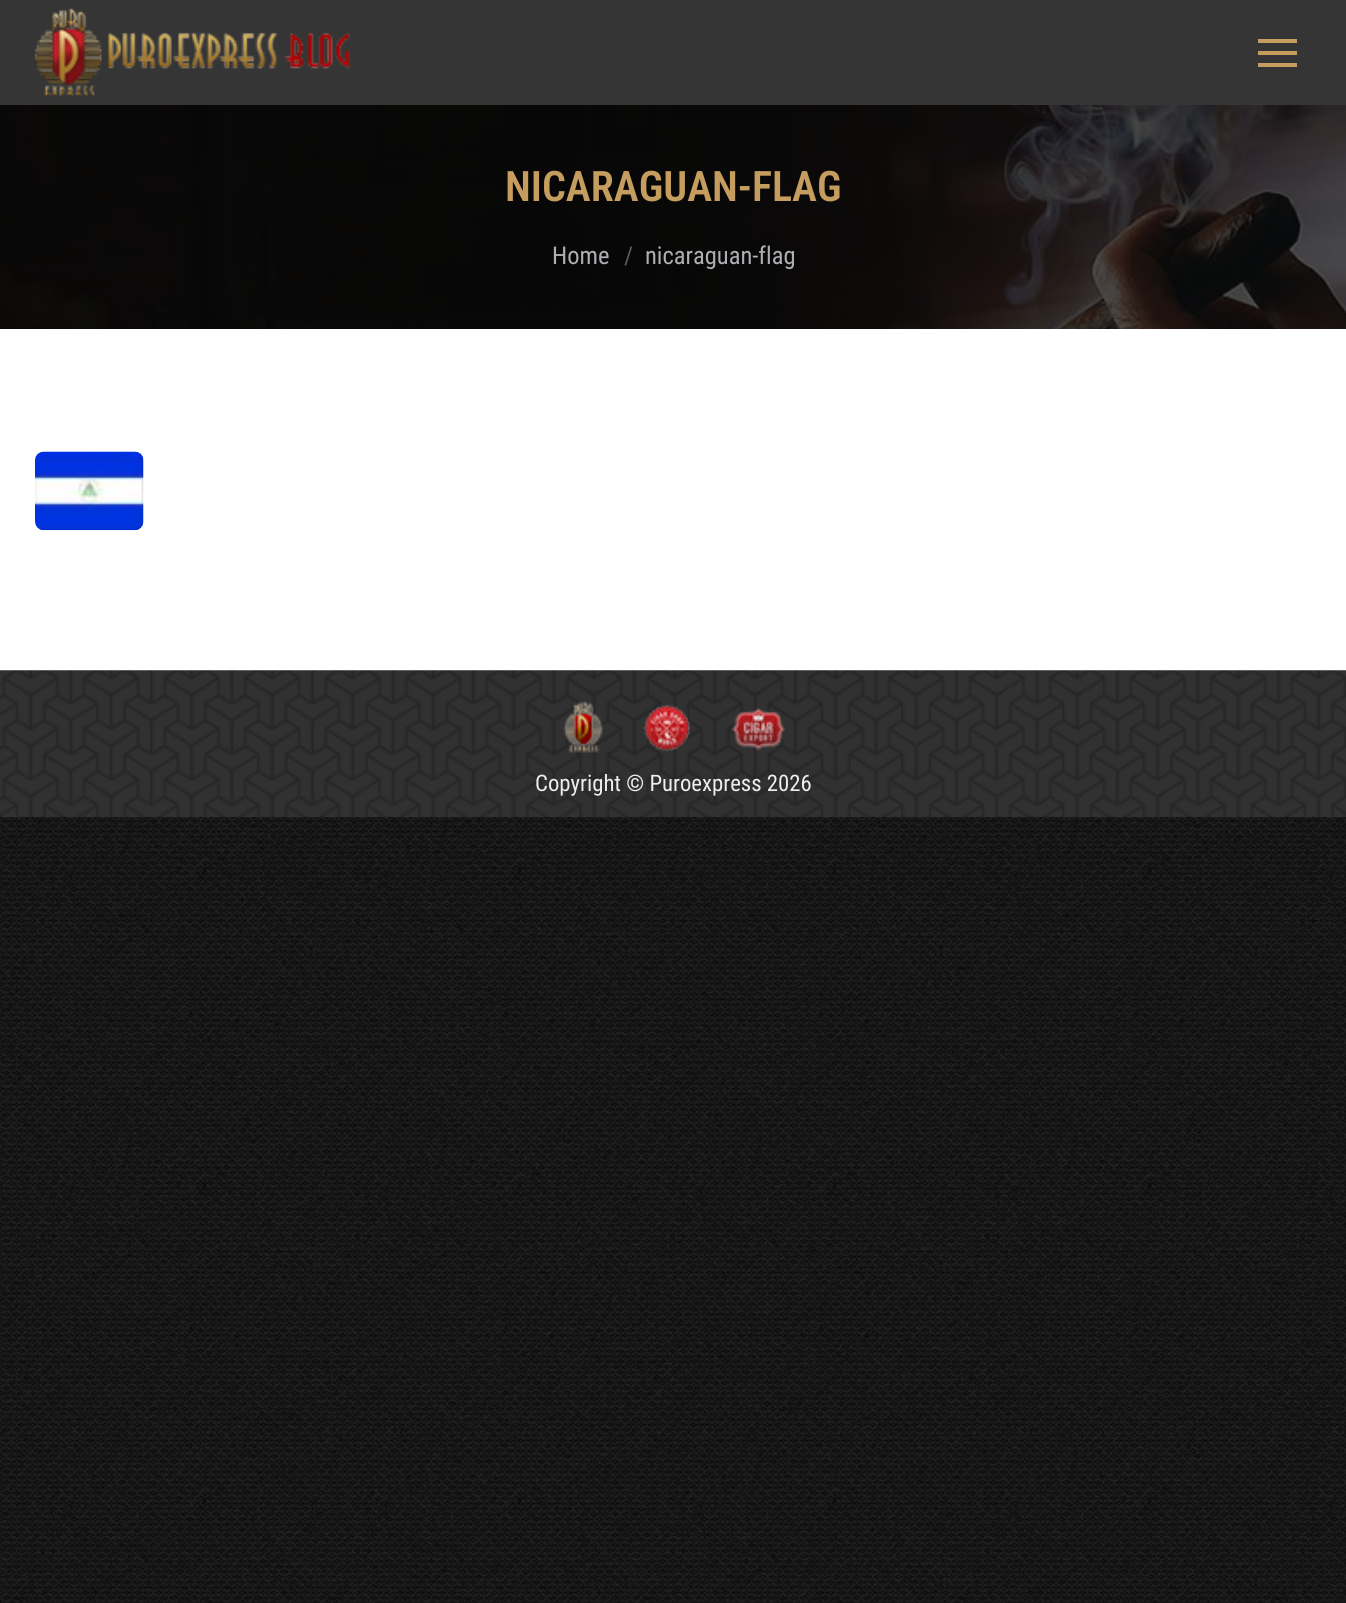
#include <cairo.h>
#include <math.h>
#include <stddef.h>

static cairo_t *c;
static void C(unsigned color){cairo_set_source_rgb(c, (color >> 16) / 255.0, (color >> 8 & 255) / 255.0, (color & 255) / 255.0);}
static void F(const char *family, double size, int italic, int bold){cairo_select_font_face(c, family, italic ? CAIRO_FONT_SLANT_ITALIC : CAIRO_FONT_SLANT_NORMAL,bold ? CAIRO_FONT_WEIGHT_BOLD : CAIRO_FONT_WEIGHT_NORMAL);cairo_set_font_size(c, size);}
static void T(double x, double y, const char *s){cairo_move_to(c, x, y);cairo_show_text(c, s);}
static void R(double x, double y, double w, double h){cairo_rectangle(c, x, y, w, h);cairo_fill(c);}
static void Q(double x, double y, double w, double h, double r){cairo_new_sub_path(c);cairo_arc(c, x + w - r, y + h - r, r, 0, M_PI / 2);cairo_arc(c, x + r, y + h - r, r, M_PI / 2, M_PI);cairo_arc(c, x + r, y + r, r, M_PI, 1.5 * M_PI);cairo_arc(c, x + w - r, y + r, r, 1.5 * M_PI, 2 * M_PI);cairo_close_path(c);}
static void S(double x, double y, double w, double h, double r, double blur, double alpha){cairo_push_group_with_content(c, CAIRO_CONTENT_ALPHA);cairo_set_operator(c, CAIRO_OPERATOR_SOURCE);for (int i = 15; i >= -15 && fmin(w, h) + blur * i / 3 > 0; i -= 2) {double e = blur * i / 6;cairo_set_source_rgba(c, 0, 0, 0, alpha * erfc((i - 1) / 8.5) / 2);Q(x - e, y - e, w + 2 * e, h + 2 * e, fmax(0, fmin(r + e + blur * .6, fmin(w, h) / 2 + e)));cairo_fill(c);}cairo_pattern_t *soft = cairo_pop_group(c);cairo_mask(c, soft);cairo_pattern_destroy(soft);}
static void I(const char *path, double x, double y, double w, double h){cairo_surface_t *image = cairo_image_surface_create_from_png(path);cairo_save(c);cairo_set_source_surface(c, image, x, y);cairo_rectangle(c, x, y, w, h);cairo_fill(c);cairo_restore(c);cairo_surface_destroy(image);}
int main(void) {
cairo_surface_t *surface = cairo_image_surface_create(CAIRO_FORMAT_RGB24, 1346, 1603);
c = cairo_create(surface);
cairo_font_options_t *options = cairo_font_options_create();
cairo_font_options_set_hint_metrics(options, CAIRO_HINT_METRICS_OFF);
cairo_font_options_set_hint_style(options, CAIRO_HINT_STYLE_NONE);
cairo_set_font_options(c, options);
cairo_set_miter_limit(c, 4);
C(0xffffff);
cairo_paint(c);
I("1.png",0,817,1346,786);
I("3.png",0,105,1346,224);
C(0x000000);
S(-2,-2,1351,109,0,13,.07);
C(0x353535);
R(0,0,1346,105);
I("2.png",35,8,316,89);
C(0xc59d5f);
R(1258,39,39,4);
R(1258,51,39,4);
R(1258,63,39,4);
F("Roboto Condensed SemiBold",42,0,0);
T(505,201,"NICARAGUAN-FLAG");
F("Roboto Condensed",24.5,0,0);
C(0xadafb3);
T(552,264,"Home");
C(0x5a5b5d);
T(624,264,"/");
C(0xadafb3);
T(645,264,"nicaraguan-flag");
I("4.png",35,451,109,80);
I("5.png",0,670,1346,147);
I("6.png",563,701,223,52);
F("Roboto Condensed",22.75,0,0);
C(0xeeeeee);
T(535,791,"Copyright © Puroexpress 2026");
cairo_surface_write_to_png(surface, "o.png");
cairo_font_options_destroy(options);
cairo_destroy(c);
cairo_surface_destroy(surface);
return 0;
}
